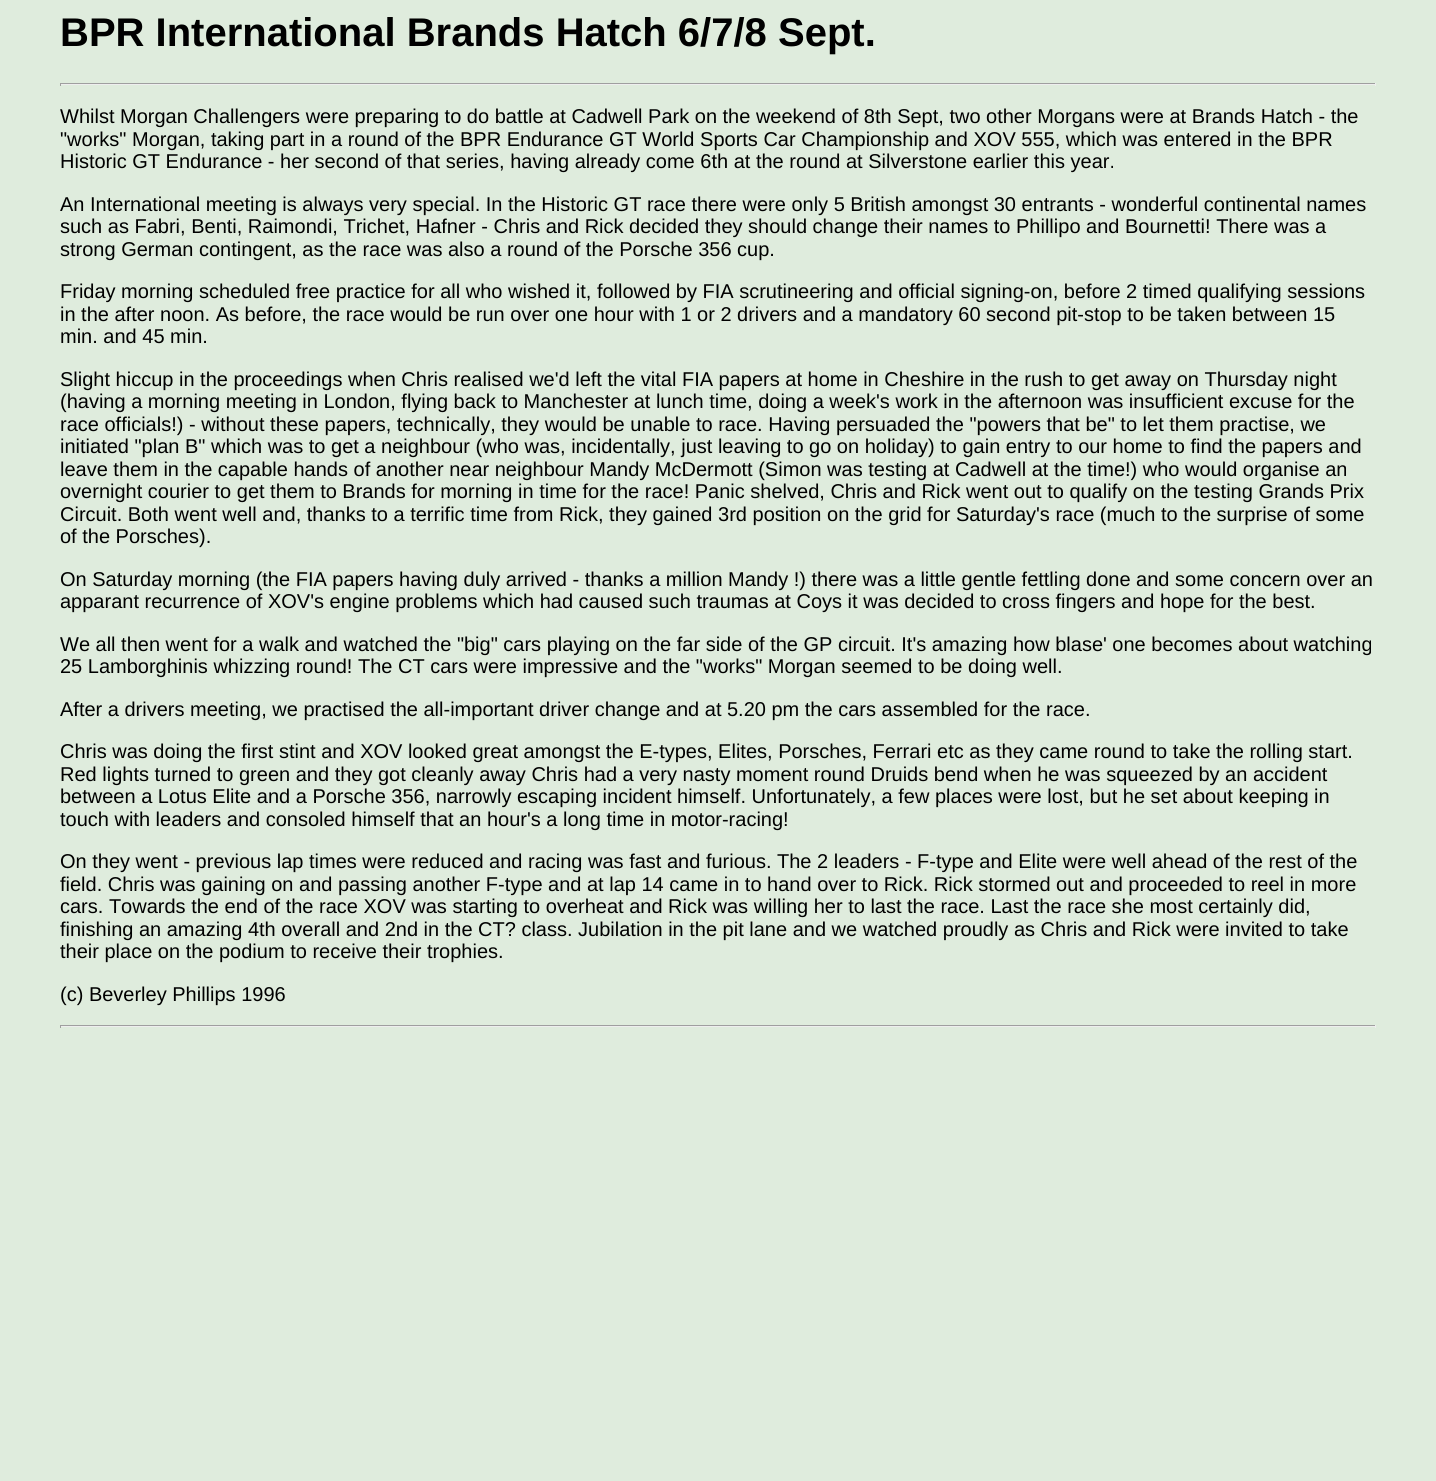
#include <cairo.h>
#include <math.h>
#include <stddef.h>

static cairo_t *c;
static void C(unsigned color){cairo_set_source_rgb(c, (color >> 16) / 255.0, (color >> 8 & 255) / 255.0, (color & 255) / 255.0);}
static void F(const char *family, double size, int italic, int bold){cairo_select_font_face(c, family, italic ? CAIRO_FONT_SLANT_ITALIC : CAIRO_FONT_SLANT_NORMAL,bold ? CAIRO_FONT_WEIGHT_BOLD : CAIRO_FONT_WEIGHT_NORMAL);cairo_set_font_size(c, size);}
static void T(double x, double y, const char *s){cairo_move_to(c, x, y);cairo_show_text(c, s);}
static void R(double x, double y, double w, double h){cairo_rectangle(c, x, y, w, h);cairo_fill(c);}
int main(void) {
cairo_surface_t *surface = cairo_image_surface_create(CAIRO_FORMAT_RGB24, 1436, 1481);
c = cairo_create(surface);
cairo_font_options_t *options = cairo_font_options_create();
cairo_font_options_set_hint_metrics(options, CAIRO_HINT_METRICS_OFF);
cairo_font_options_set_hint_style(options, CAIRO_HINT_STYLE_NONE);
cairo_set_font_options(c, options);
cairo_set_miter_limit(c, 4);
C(0xdfecdd);
cairo_paint(c);
F("Liberation Sans",40,0,1);
C(0x000000);
T(60,46,"BPR International Brands Hatch 6/7/8 Sept.");
C(0x9f9f9f);
R(60,83,1316,1);
C(0xeeeeee);
R(1375,83,1,3);
R(60,84,1316,1);
C(0x9f9f9f);
R(60,83,1,3);
F("Liberation Sans",20,0,0);
C(0x000000);
T(60,123,"Whilst Morgan Challengers were preparing to do battle at Cadwell Park on the weekend of 8th Sept, two other Morgans were at Brands Hatch - the");
T(60,146,"\"works\" Morgan, taking part in a round of the BPR Endurance GT World Sports Car Championship and XOV 555, which was entered in the BPR");
T(60,168,"Historic GT Endurance - her second of that series, having already come 6th at the round at Silverstone earlier this year.");
T(60,211,"An International meeting is always very special. In the Historic GT race there were only 5 British amongst 30 entrants - wonderful continental names");
T(60,233,"such as Fabri, Benti, Raimondi, Trichet, Hafner - Chris and Rick decided they should change their names to Phillipo and Bournetti! There was a");
T(60,256,"strong German contingent, as the race was also a round of the Porsche 356 cup.");
T(60,298,"Friday morning scheduled free practice for all who wished it, followed by FIA scrutineering and official signing-on, before 2 timed qualifying sessions");
T(60,321,"in the after noon. As before, the race would be run over one hour with 1 or 2 drivers and a mandatory 60 second pit-stop to be taken between 15");
T(60,343,"min. and 45 min.");
T(60,386,"Slight hiccup in the proceedings when Chris realised we'd left the vital FIA papers at home in Cheshire in the rush to get away on Thursday night");
T(60,408,"(having a morning meeting in London, flying back to Manchester at lunch time, doing a week's work in the afternoon was insufficient excuse for the");
T(60,431,"race officials!) - without these papers, technically, they would be unable to race. Having persuaded the \"powers that be\" to let them practise, we");
T(60,453,"initiated \"plan B\" which was to get a neighbour (who was, incidentally, just leaving to go on holiday) to gain entry to our home to find the papers and");
T(60,476,"leave them in the capable hands of another near neighbour Mandy McDermott (Simon was testing at Cadwell at the time!) who would organise an");
T(60,498,"overnight courier to get them to Brands for morning in time for the race! Panic shelved, Chris and Rick went out to qualify on the testing Grands Prix");
T(60,521,"Circuit. Both went well and, thanks to a terrific time from Rick, they gained 3rd position on the grid for Saturday's race (much to the surprise of some");
T(60,543,"of the Porsches).");
T(60,586,"On Saturday morning (the FIA papers having duly arrived - thanks a million Mandy !) there was a little gentle fettling done and some concern over an");
T(60,608,"apparant recurrence of XOV's engine problems which had caused such traumas at Coys it was decided to cross fingers and hope for the best.");
T(60,651,"We all then went for a walk and watched the \"big\" cars playing on the far side of the GP circuit. It's amazing how blase' one becomes about watching");
T(60,673,"25 Lamborghinis whizzing round! The CT cars were impressive and the \"works\" Morgan seemed to be doing well.");
T(60,716,"After a drivers meeting, we practised the all-important driver change and at 5.20 pm the cars assembled for the race.");
T(60,758,"Chris was doing the first stint and XOV looked great amongst the E-types, Elites, Porsches, Ferrari etc as they came round to take the rolling start.");
T(60,781,"Red lights turned to green and they got cleanly away Chris had a very nasty moment round Druids bend when he was squeezed by an accident");
T(60,803,"between a Lotus Elite and a Porsche 356, narrowly escaping incident himself. Unfortunately, a few places were lost, but he set about keeping in");
T(60,826,"touch with leaders and consoled himself that an hour's a long time in motor-racing!");
T(60,868,"On they went - previous lap times were reduced and racing was fast and furious. The 2 leaders - F-type and Elite were well ahead of the rest of the");
T(60,891,"field. Chris was gaining on and passing another F-type and at lap 14 came in to hand over to Rick. Rick stormed out and proceeded to reel in more");
T(60,913,"cars. Towards the end of the race XOV was starting to overheat and Rick was willing her to last the race. Last the race she most certainly did,");
T(60,936,"finishing an amazing 4th overall and 2nd in the CT? class. Jubilation in the pit lane and we watched proudly as Chris and Rick were invited to take");
T(60,958,"their place on the podium to receive their trophies.");
T(60,1001,"(c) Beverley Phillips 1996");
C(0x9f9f9f);
R(60,1025,1316,1);
C(0xeeeeee);
R(1375,1025,1,3);
R(60,1026,1316,1);
C(0x9f9f9f);
R(60,1025,1,3);
cairo_surface_write_to_png(surface, "o.png");
cairo_font_options_destroy(options);
cairo_destroy(c);
cairo_surface_destroy(surface);
return 0;
}
